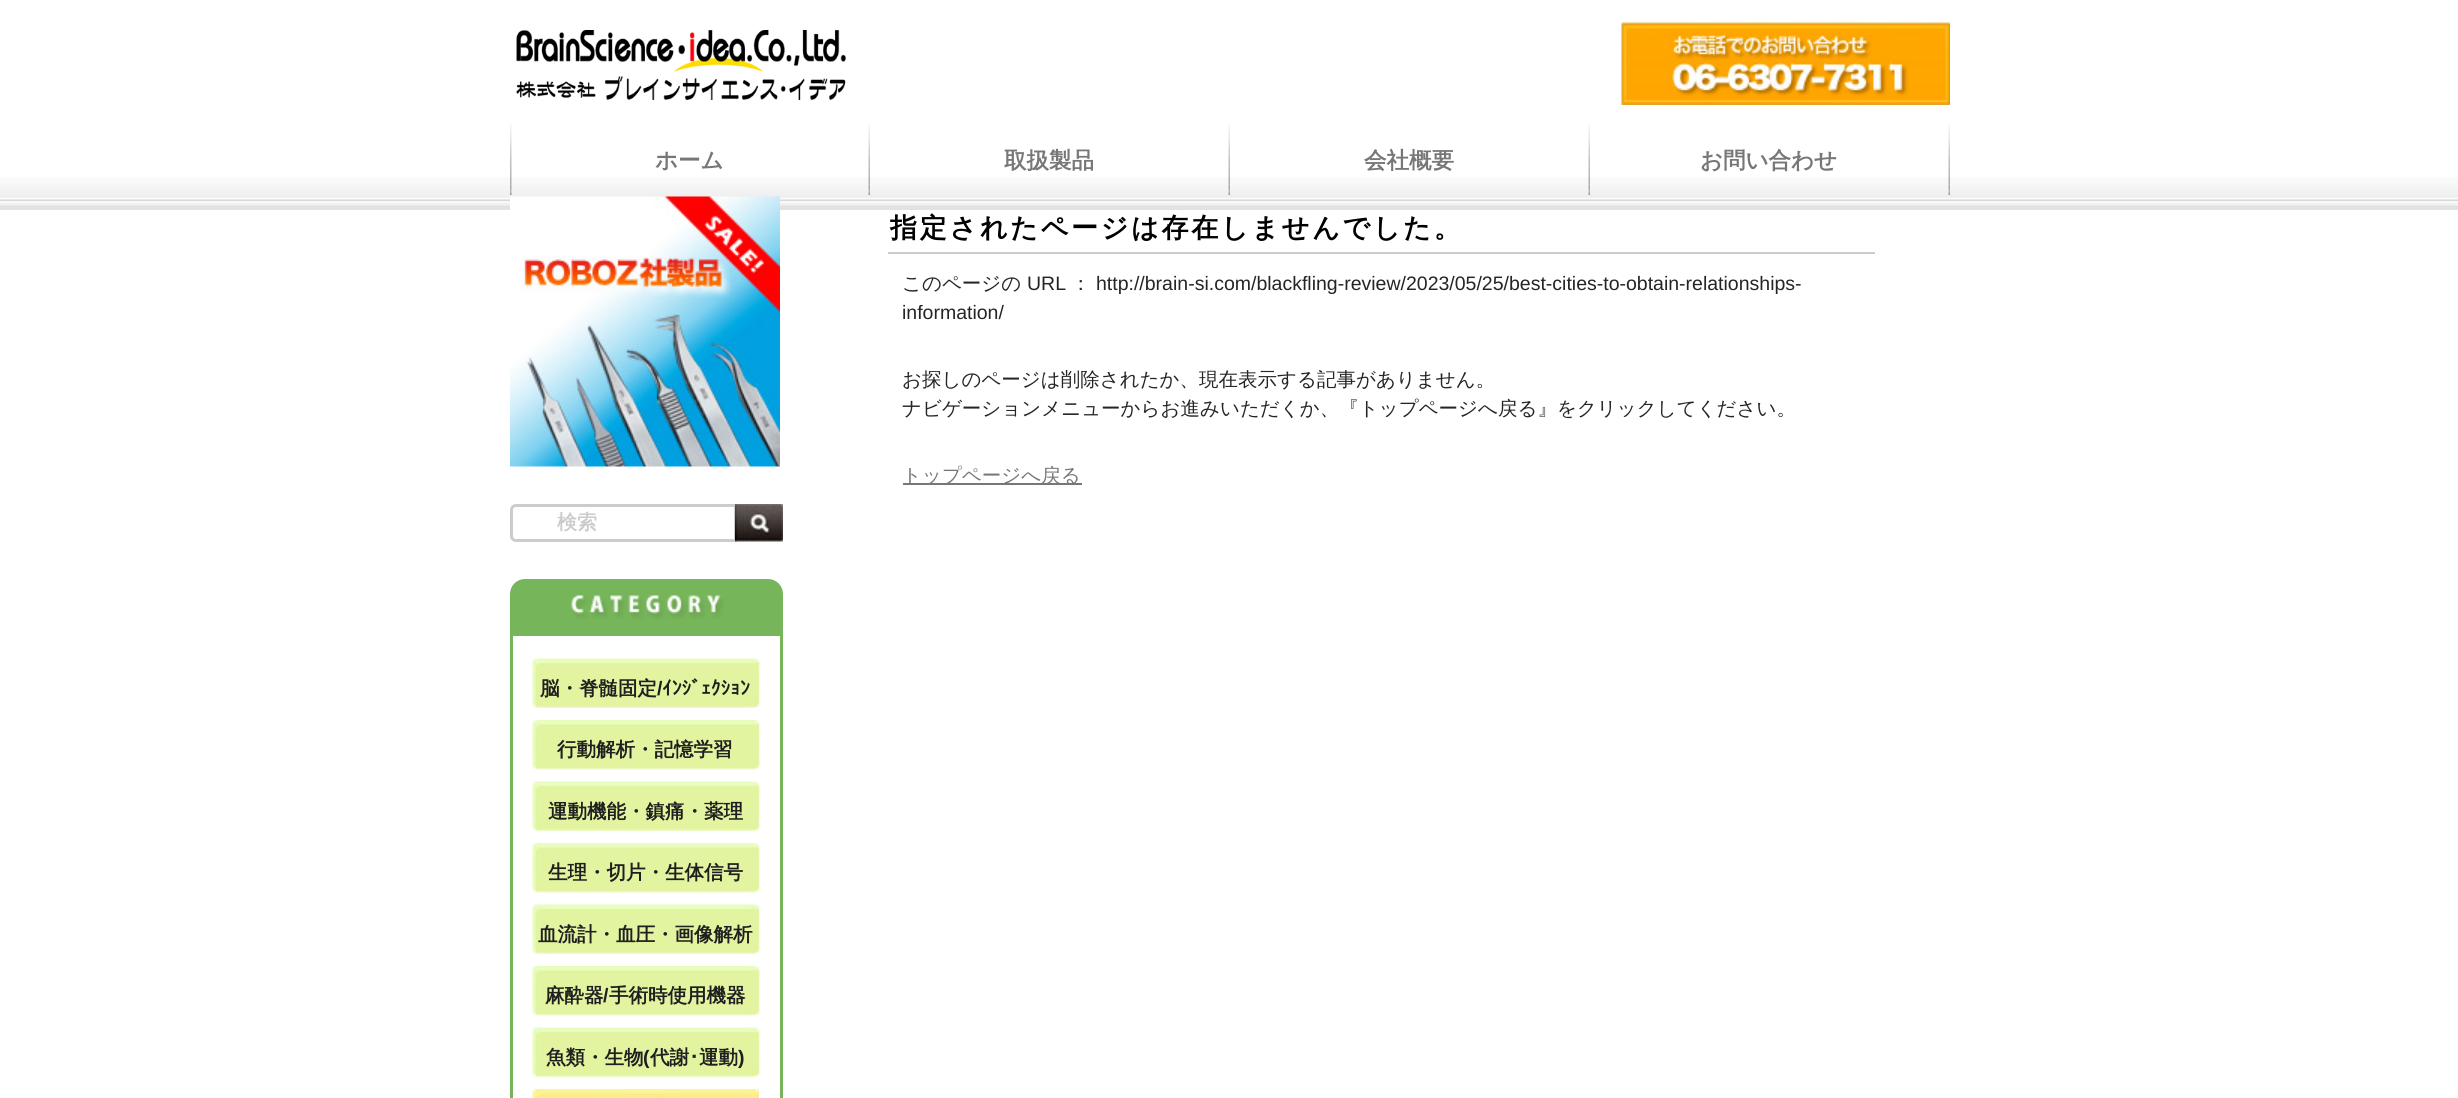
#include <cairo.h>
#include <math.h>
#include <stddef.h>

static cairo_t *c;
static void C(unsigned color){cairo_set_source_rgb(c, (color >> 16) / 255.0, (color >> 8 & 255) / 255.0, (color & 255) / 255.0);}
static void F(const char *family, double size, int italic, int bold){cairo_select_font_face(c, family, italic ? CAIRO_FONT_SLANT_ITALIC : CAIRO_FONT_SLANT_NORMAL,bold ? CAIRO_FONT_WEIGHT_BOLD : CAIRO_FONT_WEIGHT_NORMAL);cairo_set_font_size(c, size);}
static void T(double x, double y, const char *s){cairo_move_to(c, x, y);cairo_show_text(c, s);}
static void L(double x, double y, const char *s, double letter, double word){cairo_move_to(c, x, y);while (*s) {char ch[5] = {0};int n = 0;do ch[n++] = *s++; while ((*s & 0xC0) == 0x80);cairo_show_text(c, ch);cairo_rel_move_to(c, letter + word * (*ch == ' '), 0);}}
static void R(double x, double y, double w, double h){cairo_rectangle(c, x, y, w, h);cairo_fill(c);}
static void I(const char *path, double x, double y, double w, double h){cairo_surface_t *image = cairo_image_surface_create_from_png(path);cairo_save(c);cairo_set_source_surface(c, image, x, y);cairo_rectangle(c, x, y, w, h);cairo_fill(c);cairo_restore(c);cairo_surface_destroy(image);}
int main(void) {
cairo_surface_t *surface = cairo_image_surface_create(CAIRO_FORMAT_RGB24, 2458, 1098);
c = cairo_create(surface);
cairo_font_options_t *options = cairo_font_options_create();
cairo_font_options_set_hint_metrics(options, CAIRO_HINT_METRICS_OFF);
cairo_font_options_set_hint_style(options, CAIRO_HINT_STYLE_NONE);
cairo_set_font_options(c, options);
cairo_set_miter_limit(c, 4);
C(0xffffff);
cairo_paint(c);
I("1.png",0,177,2458,33);
I("2.png",516,30,330,70);
I("3.png",1621,22,329,83);
I("4.png",510,124,360,71);
F("WenQuanYi Zen Hei",22.5,0,1);
C(0x777777);
T(655,168,"ホーム");
I("5.png",1228,124,2,71);
T(1004,168,"取扱製品");
I("5.png",1588,124,2,71);
T(1364,168,"会社概要");
I("5.png",1948,124,2,71);
T(1700,168,"お問い合わせ");
C(0xcccccc);
R(888,252,987,2);
F("WenQuanYi Zen Hei",27,0,1);
C(0x000000);
L(890,237,"指定されたページは存在しませんでした。",2.75,0);
F("WenQuanYi Zen Hei Medium",19.5,0,0);
C(0x252525);
T(902,290,"このページの");
F("Liberation Sans",19.5,0,0);
T(1027,290,"URL");
F("WenQuanYi Zen Hei Medium",19.5,0,0);
T(1071,290,"：");
F("Liberation Sans",19.5,0,0);
T(1096,290,"http://brain-si.com/blackfling-review/2023/05/25/best-cities-to-obtain-relationships-");
T(902,319,"information/");
F("WenQuanYi Zen Hei Medium",19.5,0,0);
T(902,386,"お探しのページは削除されたか、現在表示する記事がありません。");
T(902,415,"ナビゲーションメニューからお進みいただくか、『トップページへ戻る』をクリックしてください。");
C(0x777777);
R(903,483,179,2);
T(902,482,"トップページへ戻る");
I("6.png",510,196,270,271);
cairo_new_path(c);
cairo_move_to(c,516,505.5);
cairo_line_to(c,735.5,505.5);
cairo_line_to(c,735.5,540.5);
cairo_line_to(c,516,540.5);
cairo_curve_to(c,513.5,540.5,511.5,538.5,511.5,536);
cairo_line_to(c,511.5,510);
cairo_curve_to(c,511.5,507.5,513.5,505.5,516,505.5);
cairo_close_path(c);
C(0xcccccc);
cairo_set_line_width(c,3);
cairo_stroke(c);
F("WenQuanYi Zen Hei",20,0,1);
T(557,529,"検索");
I("7.png",735,504,48,38);
C(0x76b55a);
cairo_new_path(c);
cairo_move_to(c,525,580.5);
cairo_line_to(c,768,580.5);
cairo_curve_to(c,775.5,580.5,781.5,586.5,781.5,594);
cairo_line_to(c,781.5,631.5);
cairo_line_to(c,511.5,631.5);
cairo_line_to(c,511.5,594);
cairo_curve_to(c,511.5,586.5,517.5,580.5,525,580.5);
cairo_close_path(c);
cairo_fill_preserve(c);
cairo_stroke(c);
I("8.png",571,595,153,24);
cairo_rectangle(c,511.5,634.5,270,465);
cairo_stroke(c);
I("9.png",532,658,229,50);
F("WenQuanYi Zen Hei",19.5,0,1);
C(0x1f1f1f);
T(540,695,"脳・脊髄固定");
F("Liberation Sans",19.5,0,1);
T(657,695,"/");
F("IPAPGothic",19.5,0,1);
T(662,695,"ｲﾝｼﾞｪｸｼｮﾝ");
I("10.png",532,720,229,50);
F("WenQuanYi Zen Hei",19.5,0,1);
T(557,756,"行動解析・記憶学習");
I("9.png",532,781,229,50);
T(548,818,"運動機能・鎮痛・薬理");
I("10.png",532,843,229,50);
T(548,879,"生理・切片・生体信号");
I("9.png",532,904,229,50);
T(538,941,"血流計・血圧・画像解析");
I("10.png",532,966,229,50);
T(545,1002,"麻酔器");
F("Liberation Sans",19.5,0,1);
T(603,1002,"/");
F("WenQuanYi Zen Hei",19.5,0,1);
T(609,1002,"手術時使用機器");
I("9.png",532,1027,229,50);
T(546,1064,"魚類・生物");
F("Liberation Sans",19.5,0,1);
T(643,1064,"(");
F("WenQuanYi Zen Hei",19.5,0,1);
T(650,1064,"代謝");
F("IPAPGothic",19.5,0,1);
T(689,1064,"･");
F("WenQuanYi Zen Hei",19.5,0,1);
T(699,1064,"運動");
F("Liberation Sans",19.5,0,1);
T(738,1064,")");
I("11.png",532,1089,227,9);
cairo_surface_write_to_png(surface, "o.png");
cairo_font_options_destroy(options);
cairo_destroy(c);
cairo_surface_destroy(surface);
return 0;
}
